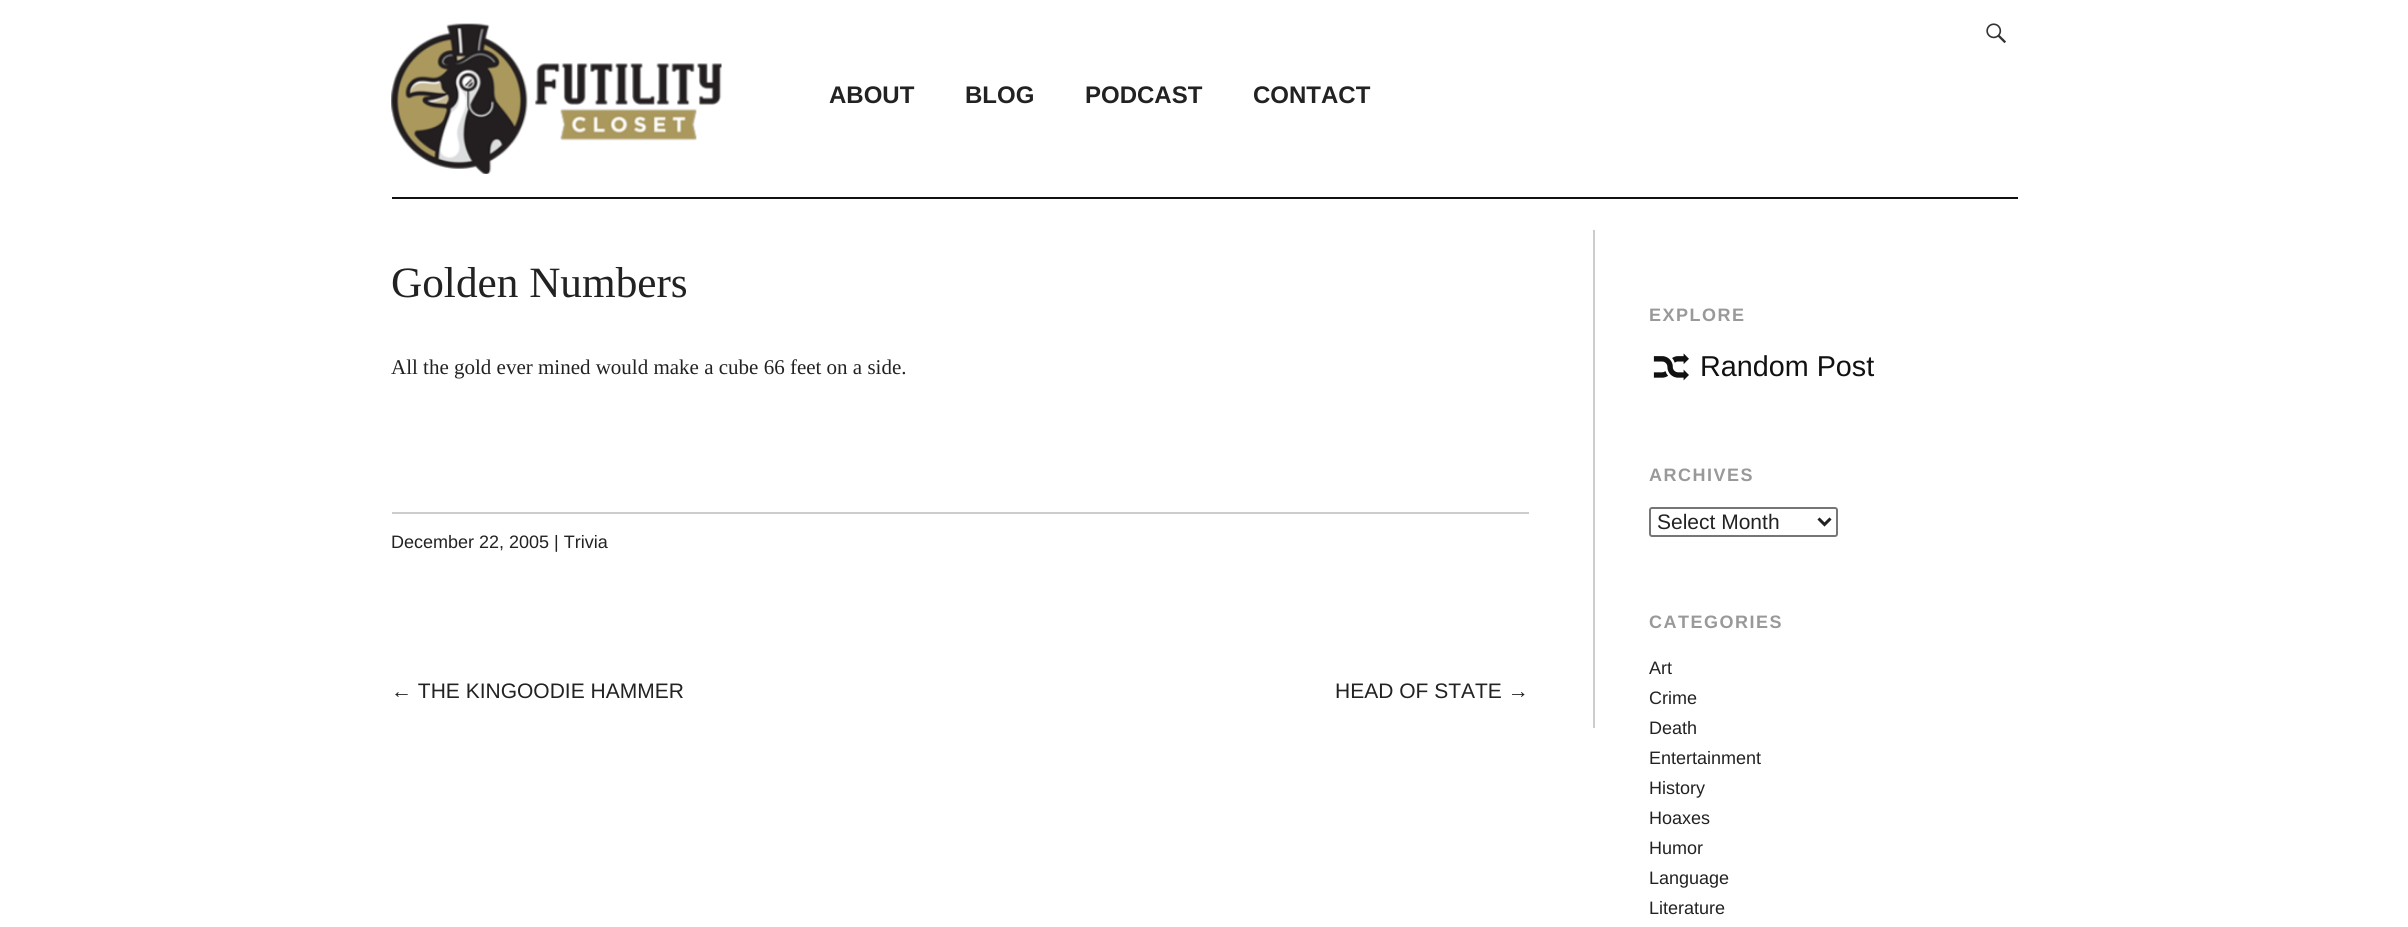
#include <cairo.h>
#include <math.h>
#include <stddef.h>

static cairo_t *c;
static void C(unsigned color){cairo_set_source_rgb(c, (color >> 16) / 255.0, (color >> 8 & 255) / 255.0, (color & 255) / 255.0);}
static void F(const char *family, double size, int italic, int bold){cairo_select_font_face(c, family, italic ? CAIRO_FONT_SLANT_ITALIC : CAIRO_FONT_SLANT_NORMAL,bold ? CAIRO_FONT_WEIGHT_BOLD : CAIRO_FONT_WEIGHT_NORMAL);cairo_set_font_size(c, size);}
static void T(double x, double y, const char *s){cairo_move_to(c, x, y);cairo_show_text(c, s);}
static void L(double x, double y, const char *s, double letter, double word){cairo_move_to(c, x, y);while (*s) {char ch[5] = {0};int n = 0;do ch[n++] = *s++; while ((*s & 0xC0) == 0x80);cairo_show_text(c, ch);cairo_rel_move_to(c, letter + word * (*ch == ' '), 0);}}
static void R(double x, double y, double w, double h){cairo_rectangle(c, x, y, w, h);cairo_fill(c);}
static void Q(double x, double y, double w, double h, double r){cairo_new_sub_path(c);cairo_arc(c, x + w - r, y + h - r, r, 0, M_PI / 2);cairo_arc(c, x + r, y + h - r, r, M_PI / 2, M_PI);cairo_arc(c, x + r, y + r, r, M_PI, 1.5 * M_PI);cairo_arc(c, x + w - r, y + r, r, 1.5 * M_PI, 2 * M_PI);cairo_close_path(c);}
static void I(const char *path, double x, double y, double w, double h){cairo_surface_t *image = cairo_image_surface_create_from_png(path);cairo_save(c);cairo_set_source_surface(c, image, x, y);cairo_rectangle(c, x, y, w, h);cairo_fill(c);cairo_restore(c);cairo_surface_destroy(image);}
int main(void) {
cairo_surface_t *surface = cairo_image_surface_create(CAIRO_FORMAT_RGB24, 2408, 927);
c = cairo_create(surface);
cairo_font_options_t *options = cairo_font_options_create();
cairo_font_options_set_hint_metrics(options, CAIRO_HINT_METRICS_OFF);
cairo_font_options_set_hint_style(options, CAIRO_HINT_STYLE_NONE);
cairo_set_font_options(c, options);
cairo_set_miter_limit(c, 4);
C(0xffffff);
cairo_paint(c);
I("1.png",391,23,331,151);
I("2.png",1986,23,20,21);
F("Liberation Sans",24,0,1);
C(0x222222);
T(829,103,"ABOUT");
T(965,103,"BLOG");
T(1085,103,"PODCAST");
T(1253,103,"CONTACT");
C(0x111111);
R(392,197,1626,2);
C(0xcccccc);
R(1593,230,2,498);
F("Liberation Serif",43.25,0,0);
C(0x222222);
T(391,297,"Golden Numbers");
F("Liberation Serif",21,0,0);
T(391,374,"All the gold ever mined would make a cube 66 feet on a side.");
C(0xcccccc);
R(392,512,1137,2);
F("Liberation Sans",18,0,0);
C(0x222222);
T(391,548,"December 22, 2005 | Trivia");
F("Liberation Sans",21,0,0);
T(391,698,"← THE KINGOODIE HAMMER");
T(1335,698,"HEAD OF STATE →");
F("Liberation Sans",18,0,1);
C(0x999999);
L(1649,321,"EXPLORE",1.5,0);
I("3.png",1653,353,36,28);
F("Liberation Sans",28.75,0,0);
C(0x111111);
T(1700,376,"Random Post");
F("Liberation Sans",18,0,1);
C(0x999999);
L(1649,481,"ARCHIVES",1.5,0);
Q(1650,508,187,28,2);
C(0x767676);
cairo_stroke(c);
cairo_new_path(c);
cairo_move_to(c,1818.5,518.5);
cairo_line_to(c,1824.5,524.5);
cairo_line_to(c,1830.5,518.5);
C(0x222222);
cairo_set_line_width(c,3);
cairo_stroke(c);
F("Liberation Sans",21,0,0);
T(1657,529,"Select Month");
F("Liberation Sans",18,0,1);
C(0x999999);
L(1649,628,"CATEGORIES",1.5,0);
F("Liberation Sans",18,0,0);
C(0x222222);
T(1649,674,"Art");
T(1649,704,"Crime");
T(1649,734,"Death");
T(1649,764,"Entertainment");
T(1649,794,"History");
T(1649,824,"Hoaxes");
T(1649,854,"Humor");
T(1649,884,"Language");
T(1649,914,"Literature");
cairo_surface_write_to_png(surface, "o.png");
cairo_font_options_destroy(options);
cairo_destroy(c);
cairo_surface_destroy(surface);
return 0;
}
